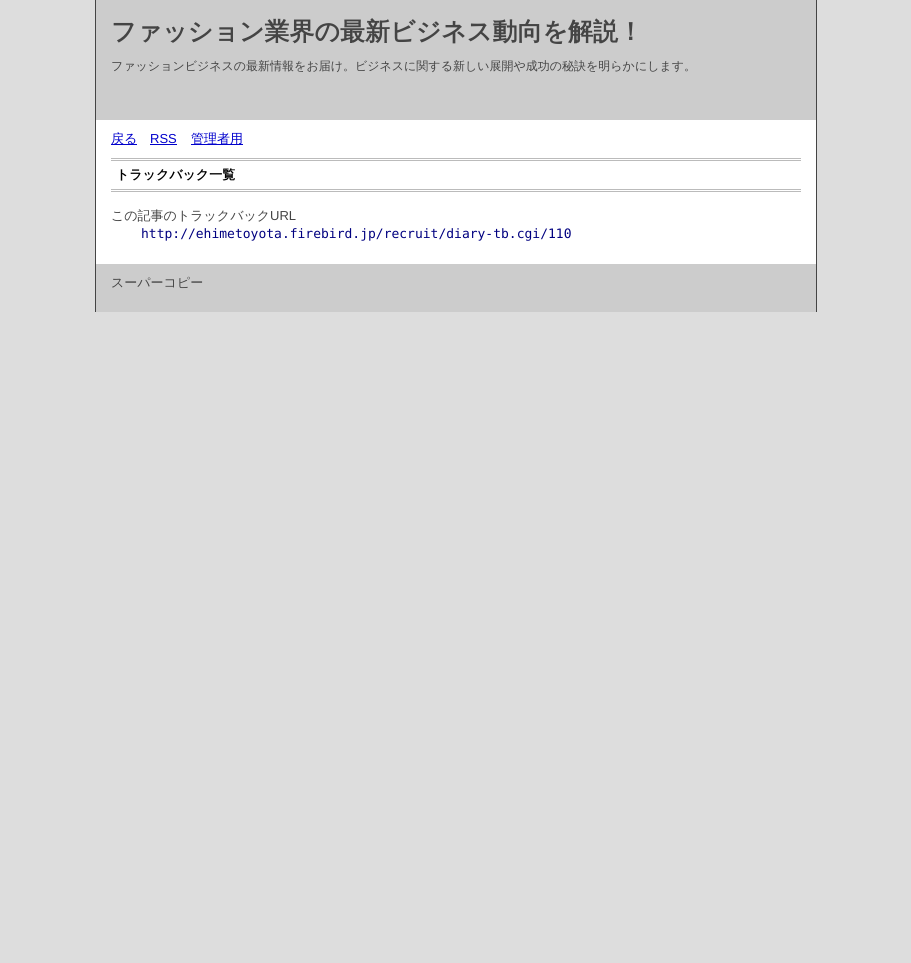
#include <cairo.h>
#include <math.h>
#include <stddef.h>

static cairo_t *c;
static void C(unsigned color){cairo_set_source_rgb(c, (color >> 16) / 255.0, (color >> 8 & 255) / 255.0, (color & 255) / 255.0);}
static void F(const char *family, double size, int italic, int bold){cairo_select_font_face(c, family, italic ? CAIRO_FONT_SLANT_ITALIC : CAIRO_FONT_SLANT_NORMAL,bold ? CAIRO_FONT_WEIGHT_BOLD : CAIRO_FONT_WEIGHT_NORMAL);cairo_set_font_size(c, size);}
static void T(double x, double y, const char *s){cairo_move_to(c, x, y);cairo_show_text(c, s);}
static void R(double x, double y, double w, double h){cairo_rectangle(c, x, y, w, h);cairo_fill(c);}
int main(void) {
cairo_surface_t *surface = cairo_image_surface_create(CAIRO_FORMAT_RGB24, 911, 963);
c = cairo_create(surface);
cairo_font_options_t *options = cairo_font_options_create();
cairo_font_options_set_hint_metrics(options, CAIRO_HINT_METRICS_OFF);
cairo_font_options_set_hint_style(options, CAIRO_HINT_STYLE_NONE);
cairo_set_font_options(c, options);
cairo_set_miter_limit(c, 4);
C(0xdddddd);
cairo_paint(c);
C(0xffffff);
R(96,120,720,144);
C(0x444444);
R(816,0,1,312);
R(95,0,1,312);
C(0xcccccc);
R(96,0,720,120);
F("WenQuanYi Zen Hei",25,0,1);
C(0x444444);
T(111,40,"ファッション業界の最新ビジネス動向を解説！");
F("WenQuanYi Zen Hei Medium",12,0,0);
T(111,70,"ファッションビジネスの最新情報をお届け。ビジネスに関する新しい展開や成功の秘訣を明らかにします。");
C(0x0000cc);
R(111,144,26,1);
F("WenQuanYi Zen Hei Medium",13,0,0);
T(111,143,"戻る");
F("Liberation Sans",13,0,0);
T(150,143,"RSS");
R(150,144,27,1);
R(191,144,52,1);
F("WenQuanYi Zen Hei Medium",13,0,0);
T(191,143,"管理者用");
C(0xbbbbbb);
R(111,158,690,1);
R(111,160,690,1);
R(111,189,690,1);
R(111,191,690,1);
F("WenQuanYi Zen Hei",13,0,1);
C(0x000000);
T(116,179,"トラックバック一覧");
F("WenQuanYi Zen Hei Medium",13,0,0);
C(0x444444);
T(111,220,"この記事のトラックバック");
F("Liberation Sans",13,0,0);
T(270,220,"URL");
F("DejaVu Sans Mono",13,0,0);
C(0x000080);
T(141,238,"http://ehimetoyota.firebird.jp/recruit/diary-tb.cgi/110");
C(0xcccccc);
R(96,264,720,48);
F("WenQuanYi Zen Hei Medium",13,0,0);
C(0x444444);
T(111,287,"スーパーコピー");
cairo_surface_write_to_png(surface, "o.png");
cairo_font_options_destroy(options);
cairo_destroy(c);
cairo_surface_destroy(surface);
return 0;
}
